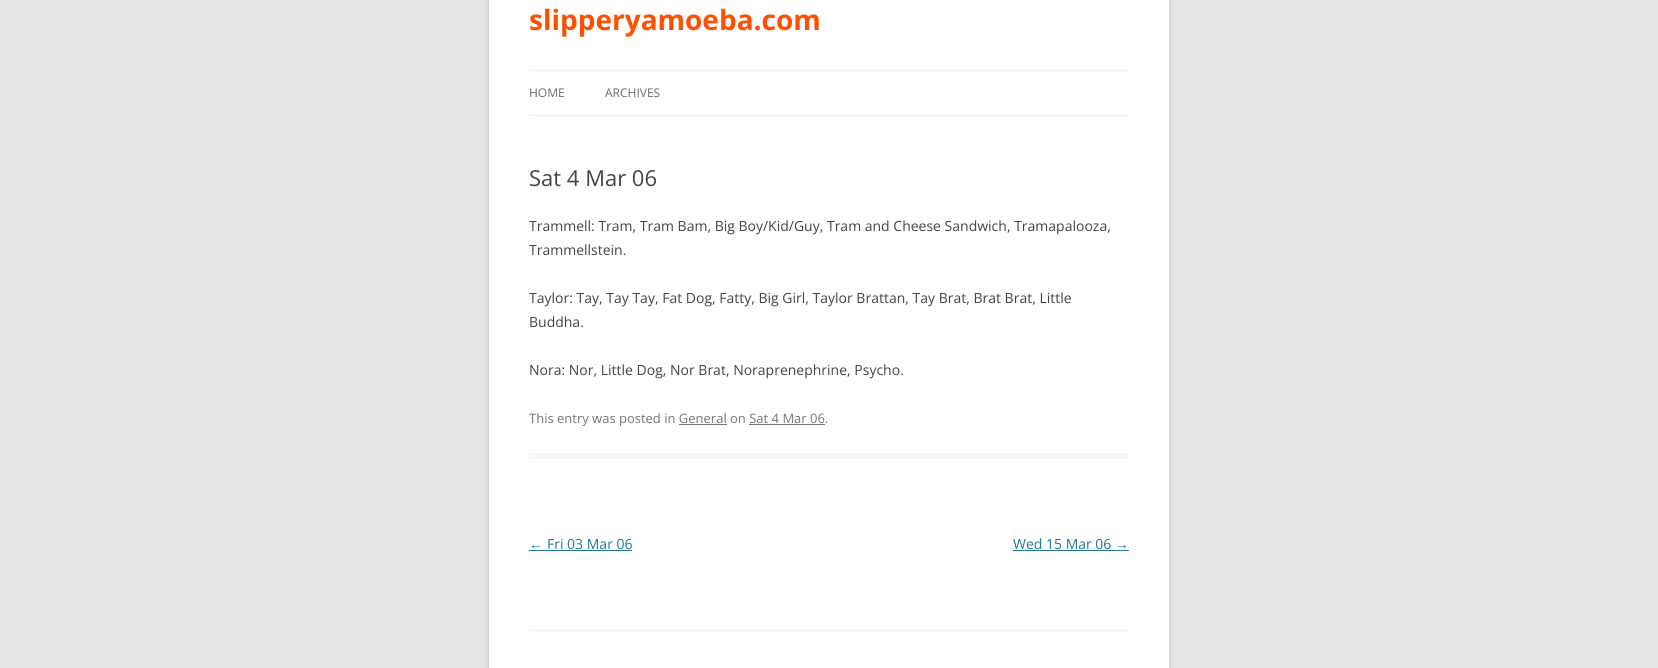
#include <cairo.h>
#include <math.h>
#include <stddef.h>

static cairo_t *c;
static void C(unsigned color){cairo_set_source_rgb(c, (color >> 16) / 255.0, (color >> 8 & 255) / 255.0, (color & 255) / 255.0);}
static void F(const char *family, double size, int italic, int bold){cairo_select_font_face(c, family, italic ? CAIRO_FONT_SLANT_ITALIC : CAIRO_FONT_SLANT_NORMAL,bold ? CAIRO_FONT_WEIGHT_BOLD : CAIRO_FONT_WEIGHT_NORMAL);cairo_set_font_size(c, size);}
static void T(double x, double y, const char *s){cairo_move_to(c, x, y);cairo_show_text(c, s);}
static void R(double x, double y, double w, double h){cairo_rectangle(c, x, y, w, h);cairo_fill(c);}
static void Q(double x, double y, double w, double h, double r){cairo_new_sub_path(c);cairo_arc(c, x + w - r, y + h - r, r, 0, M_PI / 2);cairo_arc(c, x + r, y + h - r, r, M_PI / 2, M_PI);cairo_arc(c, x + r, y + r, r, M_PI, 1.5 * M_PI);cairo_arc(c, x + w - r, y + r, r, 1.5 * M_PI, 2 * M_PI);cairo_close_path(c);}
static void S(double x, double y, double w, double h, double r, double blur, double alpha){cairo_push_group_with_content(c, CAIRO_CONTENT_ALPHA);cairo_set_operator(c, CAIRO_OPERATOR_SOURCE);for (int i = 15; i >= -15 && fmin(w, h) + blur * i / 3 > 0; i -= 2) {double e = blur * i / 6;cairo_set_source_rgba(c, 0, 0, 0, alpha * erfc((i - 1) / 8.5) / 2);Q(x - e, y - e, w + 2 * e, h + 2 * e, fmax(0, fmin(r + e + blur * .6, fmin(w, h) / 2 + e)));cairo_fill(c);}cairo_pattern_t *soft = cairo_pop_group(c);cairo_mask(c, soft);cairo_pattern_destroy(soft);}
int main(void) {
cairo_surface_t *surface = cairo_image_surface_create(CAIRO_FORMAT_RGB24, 1658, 668);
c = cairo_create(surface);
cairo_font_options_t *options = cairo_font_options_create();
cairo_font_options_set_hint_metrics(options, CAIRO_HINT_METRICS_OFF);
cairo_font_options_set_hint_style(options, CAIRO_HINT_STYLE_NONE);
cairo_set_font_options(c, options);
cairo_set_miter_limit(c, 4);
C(0xe6e6e6);
cairo_paint(c);
C(0x646464);
S(489,-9,680,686,0,3,.3);
C(0xffffff);
R(489,0,680,668);
F("Open Sans",28,0,1);
C(0xff5000);
T(529,30,"slipperyamoeba.com");
C(0xededed);
R(529,70,600,1);
R(529,115,600,1);
F("Open Sans",12,0,0);
C(0x6a6a6a);
T(529,97,"HOME");
T(605,97,"ARCHIVES");
C(0xededed);
R(529,454,600,1);
R(529,457,600,1);
F("Open Sans",22,0,0);
C(0x444444);
T(529,186,"Sat 4 Mar 06");
F("Open Sans",14,0,0);
T(529,231,"Trammell: Tram, Tram Bam, Big Boy/Kid/Guy, Tram and Cheese Sandwich, Tramapalooza,");
T(529,255,"Trammellstein.");
T(529,303,"Taylor: Tay, Tay Tay, Fat Dog, Fatty, Big Girl, Taylor Brattan, Tay Brat, Brat Brat, Little");
T(529,327,"Buddha.");
T(529,375,"Nora: Nor, Little Dog, Nor Brat, Noraprenephrine, Psycho.");
F("Open Sans",13,0,0);
C(0x757575);
T(529,423,"This entry was posted in General on Sat 4 Mar 06.");
R(679,424,48,1);
R(749,424,76,1);
F("Liberation Sans",14,0,0);
C(0x21759b);
T(529,549,"←");
R(529,550,103,1);
F("Open Sans",14,0,0);
T(547,549,"Fri 03 Mar 06");
T(1013,549,"Wed 15 Mar 06");
F("Liberation Sans",14,0,0);
T(1115,549,"→");
R(1013,550,116,1);
C(0xededed);
R(529,630,600,1);
cairo_surface_write_to_png(surface, "o.png");
cairo_font_options_destroy(options);
cairo_destroy(c);
cairo_surface_destroy(surface);
return 0;
}
